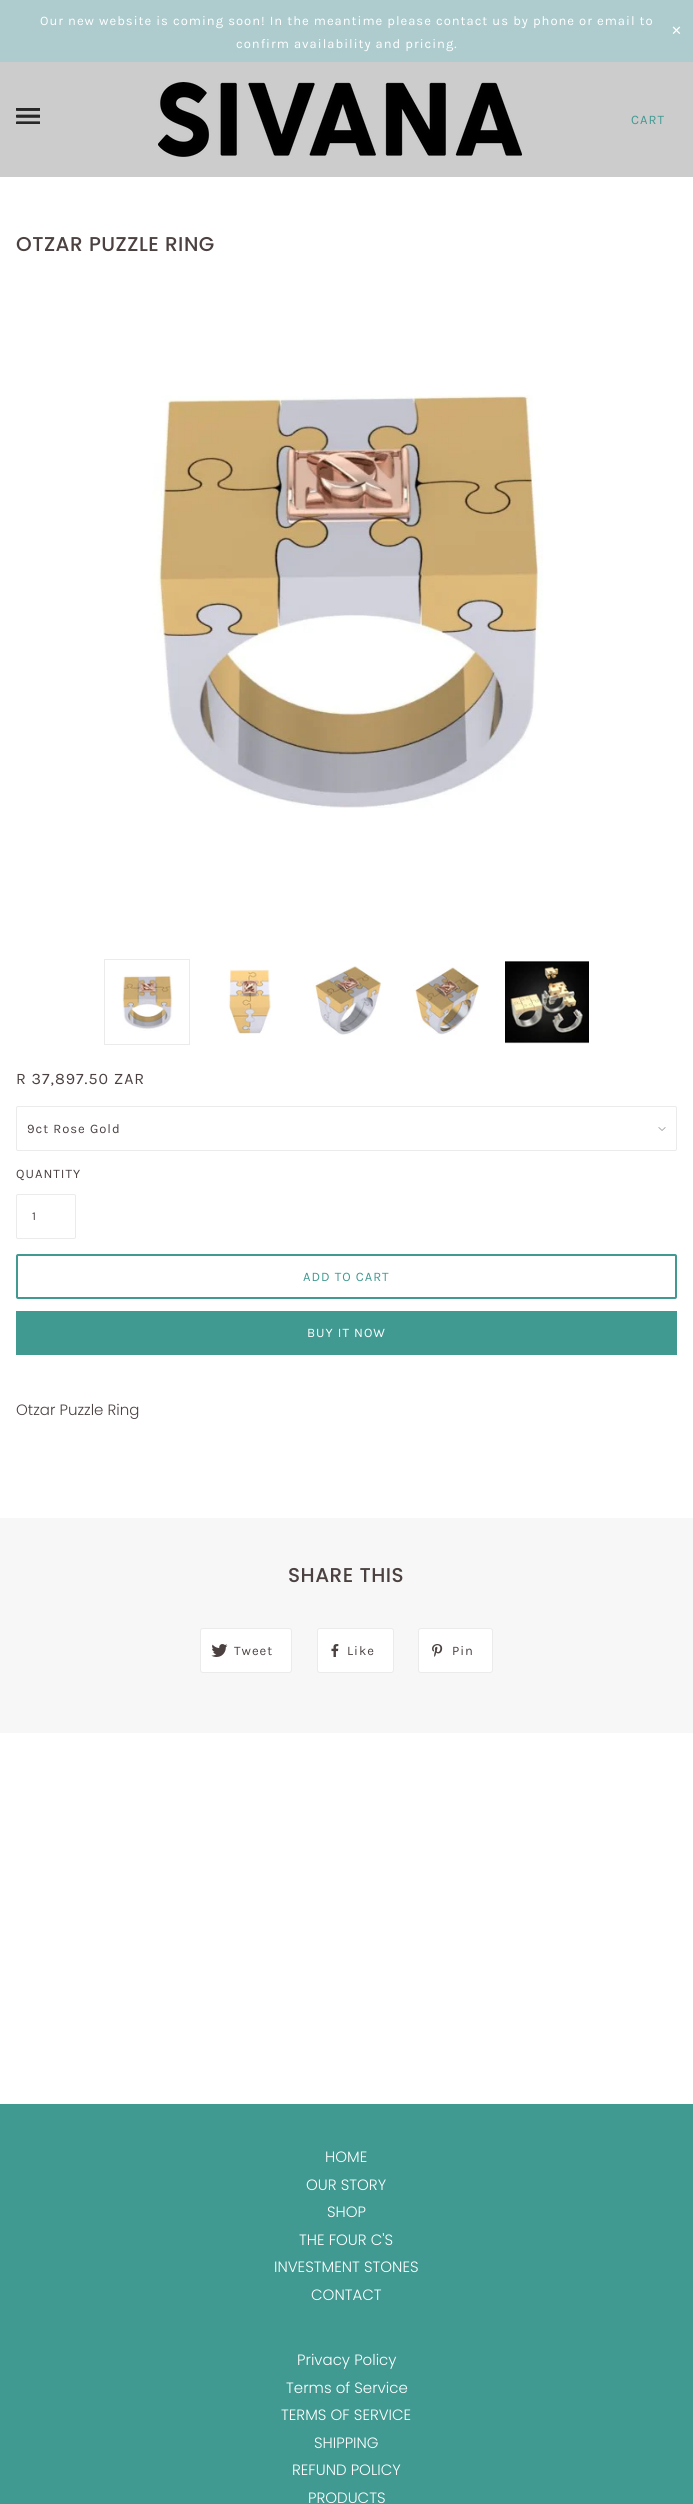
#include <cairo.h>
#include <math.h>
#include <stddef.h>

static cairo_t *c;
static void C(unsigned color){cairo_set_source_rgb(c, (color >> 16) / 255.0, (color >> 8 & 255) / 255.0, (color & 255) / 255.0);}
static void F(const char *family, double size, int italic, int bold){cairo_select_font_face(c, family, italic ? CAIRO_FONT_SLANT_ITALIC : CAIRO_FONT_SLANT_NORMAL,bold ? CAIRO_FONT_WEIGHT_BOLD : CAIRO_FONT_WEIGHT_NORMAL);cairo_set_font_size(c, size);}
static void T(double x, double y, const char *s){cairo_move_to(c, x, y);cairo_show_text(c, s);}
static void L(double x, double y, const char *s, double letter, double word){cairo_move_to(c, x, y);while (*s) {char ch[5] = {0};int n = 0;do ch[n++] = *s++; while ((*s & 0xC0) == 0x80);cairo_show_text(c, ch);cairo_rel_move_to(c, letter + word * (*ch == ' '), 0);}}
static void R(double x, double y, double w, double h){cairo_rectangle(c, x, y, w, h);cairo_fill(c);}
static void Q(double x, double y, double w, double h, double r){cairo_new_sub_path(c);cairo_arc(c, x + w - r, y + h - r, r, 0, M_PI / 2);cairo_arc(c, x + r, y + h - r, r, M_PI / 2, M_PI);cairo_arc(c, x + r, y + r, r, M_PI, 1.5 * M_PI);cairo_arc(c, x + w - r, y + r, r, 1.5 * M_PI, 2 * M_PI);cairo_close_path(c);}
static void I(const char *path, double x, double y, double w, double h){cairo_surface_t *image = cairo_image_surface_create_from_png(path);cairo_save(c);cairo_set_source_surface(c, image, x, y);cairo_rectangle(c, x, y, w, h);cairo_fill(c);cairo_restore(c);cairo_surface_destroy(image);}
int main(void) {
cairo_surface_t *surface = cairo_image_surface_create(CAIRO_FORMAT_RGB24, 693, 2504);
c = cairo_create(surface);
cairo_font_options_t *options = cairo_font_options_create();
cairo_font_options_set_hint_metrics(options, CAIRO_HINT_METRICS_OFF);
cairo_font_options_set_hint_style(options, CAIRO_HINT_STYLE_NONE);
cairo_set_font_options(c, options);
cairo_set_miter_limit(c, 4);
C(0xffffff);
cairo_paint(c);
C(0xaecbce);
R(0,0,693,62);
F("Karla",13,0,0);
C(0xffffff);
L(40,25,"Our new website is coming soon! In the meantime please contact us by phone or email to",1,0);
L(236,48,"confirm availability and pricing.",1,0);
F("DejaVu Sans",13,0,0);
L(671,35,"✕",1,0);
C(0xcccccc);
R(0,62,693,115);
I("1.png",16,108,24,16);
I("2.png",158,82,364,75);
F("Karla",13,0,0);
C(0x409a92);
L(631,124,"CART",1,0);
F("Poppins Medium",20,0,0);
C(0x4b4141);
L(16,251,"OTZAR PUZZLE RING",.5,0);
I("3.png",153,395,390,413);
I("4.png",122,975,51,56);
cairo_rectangle(c,104.5,959.5,85,85);
C(0xebebeb);
cairo_set_line_width(c,1);
cairo_stroke(c);
I("5.png",228,969,43,65);
I("6.png",313,966,70,69);
I("7.png",413,967,67,68);
I("8.png",505,961,84,83);
F("Karla",16,0,0);
C(0x4b4141);
L(16,1084,"R 37,897.50 ZAR",1,0);
I("9.png",658,1127,8,4);
Q(16.5,1106.5,660,44,1.5);
C(0xebebeb);
cairo_stroke(c);
F("Karla",13,0,0);
C(0x4b4141);
L(27,1133,"9ct Rose Gold",1,0);
L(16,1178,"QUANTITY",1,0);
Q(16.5,1194.5,59,44,1.5);
C(0xebebeb);
cairo_stroke(c);
F("Karla",12,0,0);
C(0x4b4141);
L(32,1220,"1",1,0);
Q(17,1255,659,43,1);
C(0x409a92);
cairo_set_line_width(c,2);
cairo_stroke(c);
F("Karla",13,0,0);
L(303,1281,"ADD TO CART",1,0);
R(16,1311,661,44);
C(0xffffff);
L(307,1337,"BUY IT NOW",1,0);
F("Poppins Light",15,0,0);
C(0x4b4141);
T(16,1415,"Otzar Puzzle Ring");
C(0xf7f7f7);
R(0,1518,693,215);
F("Poppins Medium",20,0,0);
C(0x4b4141);
L(288,1582,"SHARE THIS",.5,0);
C(0xffffff);
Q(200.5,1628.5,91,44,2.5);
cairo_fill_preserve(c);
C(0xebebeb);
cairo_set_line_width(c,1);
cairo_stroke(c);
I("10.png",211,1644,17,13);
F("Karla",13,0,0);
C(0x4b4141);
L(234,1655,"Tweet",1,0);
C(0xffffff);
Q(317.5,1628.5,76,44,2.5);
cairo_fill_preserve(c);
C(0xebebeb);
cairo_stroke(c);
I("11.png",331,1644,8,13);
C(0x4b4141);
L(347,1655,"Like",1,0);
C(0xffffff);
Q(418.5,1628.5,74,44,2.5);
cairo_fill_preserve(c);
C(0xebebeb);
cairo_stroke(c);
I("12.png",432,1644,11,13);
C(0x4b4141);
L(452,1655,"Pin",1,0);
C(0x409a92);
R(0,2104,693,400);
F("Poppins Light",15,0,0);
C(0xffffff);
T(325,2162,"HOME");
T(306,2190,"OUR STORY");
T(327,2217,"SHOP");
T(299,2245,"THE FOUR C'S");
T(274,2272,"INVESTMENT STONES");
T(311,2300,"CONTACT");
T(297,2365,"Privacy Policy");
T(286,2393,"Terms of Service");
T(281,2420,"TERMS OF SERVICE");
T(314,2448,"SHIPPING");
T(292,2475,"REFUND POLICY");
T(308,2503,"PRODUCTS");
cairo_surface_write_to_png(surface, "o.png");
cairo_font_options_destroy(options);
cairo_destroy(c);
cairo_surface_destroy(surface);
return 0;
}
